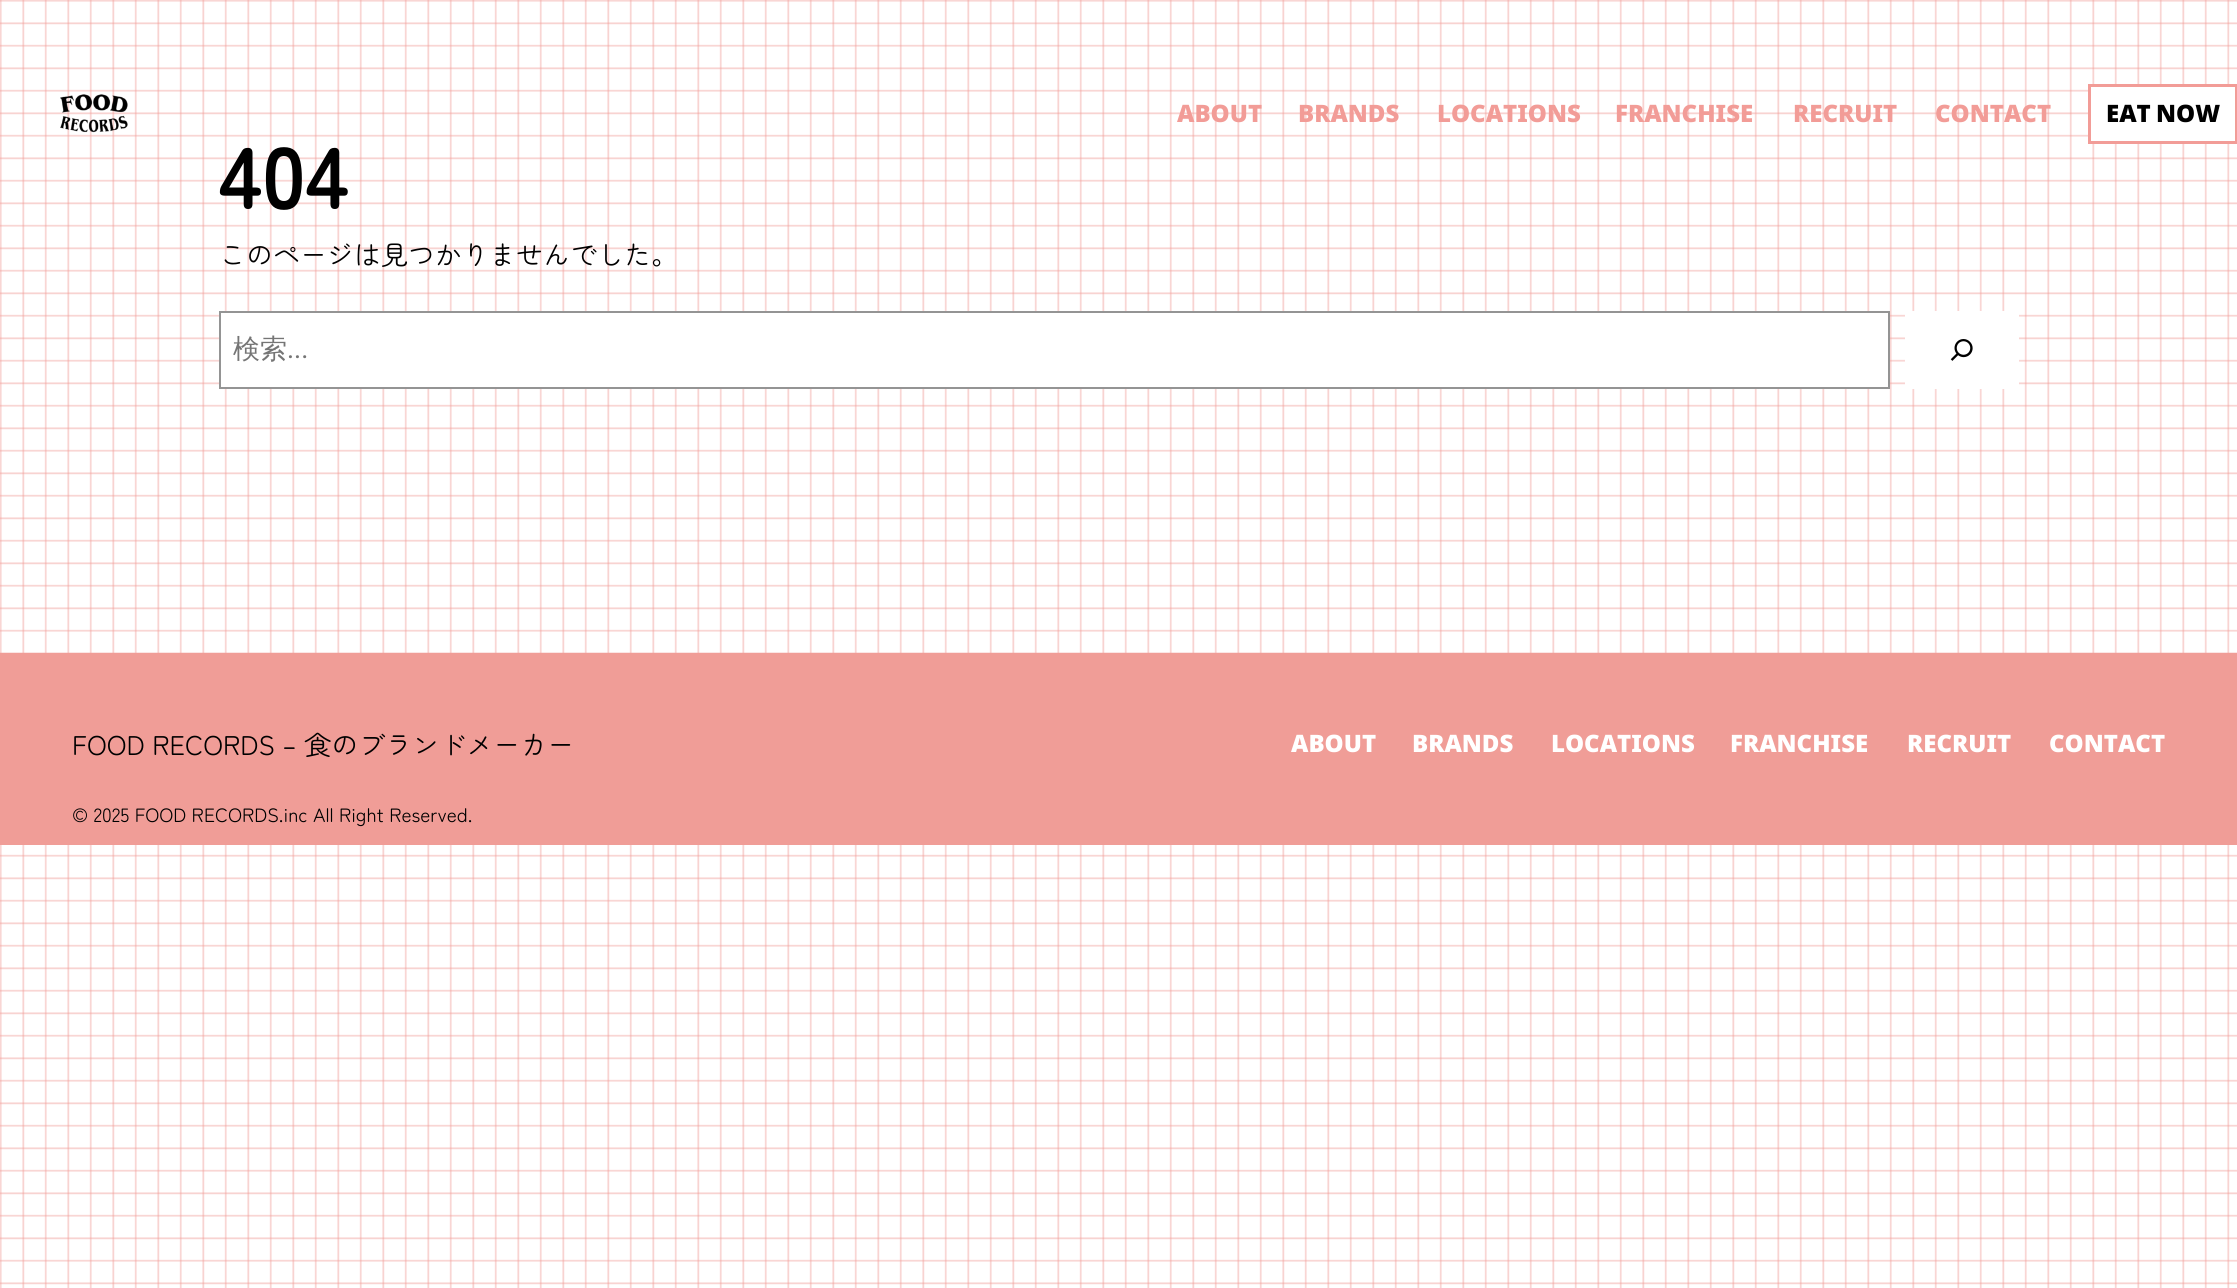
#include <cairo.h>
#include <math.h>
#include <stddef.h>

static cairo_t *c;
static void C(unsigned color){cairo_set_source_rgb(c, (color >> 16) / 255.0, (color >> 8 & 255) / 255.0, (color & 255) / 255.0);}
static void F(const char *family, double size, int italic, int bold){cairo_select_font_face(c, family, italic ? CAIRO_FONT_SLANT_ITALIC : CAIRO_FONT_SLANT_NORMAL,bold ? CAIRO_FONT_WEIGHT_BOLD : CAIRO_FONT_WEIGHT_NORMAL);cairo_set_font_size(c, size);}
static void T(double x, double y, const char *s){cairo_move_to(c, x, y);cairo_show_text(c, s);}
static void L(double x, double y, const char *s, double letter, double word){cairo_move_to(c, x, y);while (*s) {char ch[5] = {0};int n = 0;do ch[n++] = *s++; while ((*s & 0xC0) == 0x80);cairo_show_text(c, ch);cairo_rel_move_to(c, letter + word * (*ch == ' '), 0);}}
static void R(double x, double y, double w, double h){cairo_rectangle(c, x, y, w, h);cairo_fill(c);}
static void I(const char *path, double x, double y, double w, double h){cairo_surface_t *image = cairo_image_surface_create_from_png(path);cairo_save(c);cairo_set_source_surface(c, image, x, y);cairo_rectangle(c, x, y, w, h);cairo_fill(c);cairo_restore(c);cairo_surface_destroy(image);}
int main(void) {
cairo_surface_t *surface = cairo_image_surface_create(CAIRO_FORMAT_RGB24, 2237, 1288);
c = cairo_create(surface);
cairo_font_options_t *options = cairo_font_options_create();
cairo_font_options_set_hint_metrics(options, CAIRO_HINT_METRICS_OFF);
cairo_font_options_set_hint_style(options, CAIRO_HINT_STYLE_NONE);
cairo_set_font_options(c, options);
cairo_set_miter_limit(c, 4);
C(0xffffff);
cairo_paint(c);
I("1.png",0,0,2237,1288);
I("2.png",60,94,68,39);
F("Noto Sans Black",24,0,0);
C(0xf29c97);
T(1177,122,"ABOUT");
T(1298,122,"BRANDS");
T(1437,122,"LOCATIONS");
T(1615,122,"FRANCHISE");
T(1793,122,"RECRUIT");
T(1935,122,"CONTACT");
C(0xffffff);
cairo_rectangle(c,2089.5,85.5,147,57);
cairo_fill_preserve(c);
C(0xf29c97);
cairo_set_line_width(c,3);
cairo_stroke(c);
C(0x000000);
L(2106,122,"EAT NOW",0,-1);
F("Zen Maru Gothic",87,0,1);
T(219,209,"404");
F("Zen Maru Gothic",27,0,0);
T(219,265,"このページは見つかりませんでした。");
C(0xffffff);
cairo_rectangle(c,220,312,1669,76);
cairo_fill_preserve(c);
C(0x949494);
cairo_set_line_width(c,2);
cairo_stroke(c);
F("WenQuanYi Zen Hei Medium",27,0,0);
C(0x757575);
T(233,358,"検索");
F("Roboto",27,0,0);
T(287,358,"...");
C(0xffffff);
R(1905,311,114,78);
I("3.png",1950,339,23,22);
C(0xf09d97);
R(0,653,2237,192);
F("Zen Maru Gothic",27,0,0);
C(0x000000);
T(72,755,"FOOD RECORDS – 食のブランドメーカー");
F("Noto Sans Black",24,0,0);
C(0xffffff);
T(1291,752,"ABOUT");
T(1412,752,"BRANDS");
T(1551,752,"LOCATIONS");
T(1730,752,"FRANCHISE");
T(1907,752,"RECRUIT");
T(2049,752,"CONTACT");
F("Zen Maru Gothic",19.2,0,0);
C(0x000000);
T(72,822,"© 2025 FOOD RECORDS.inc All Right Reserved.");
cairo_surface_write_to_png(surface, "o.png");
cairo_font_options_destroy(options);
cairo_destroy(c);
cairo_surface_destroy(surface);
return 0;
}
